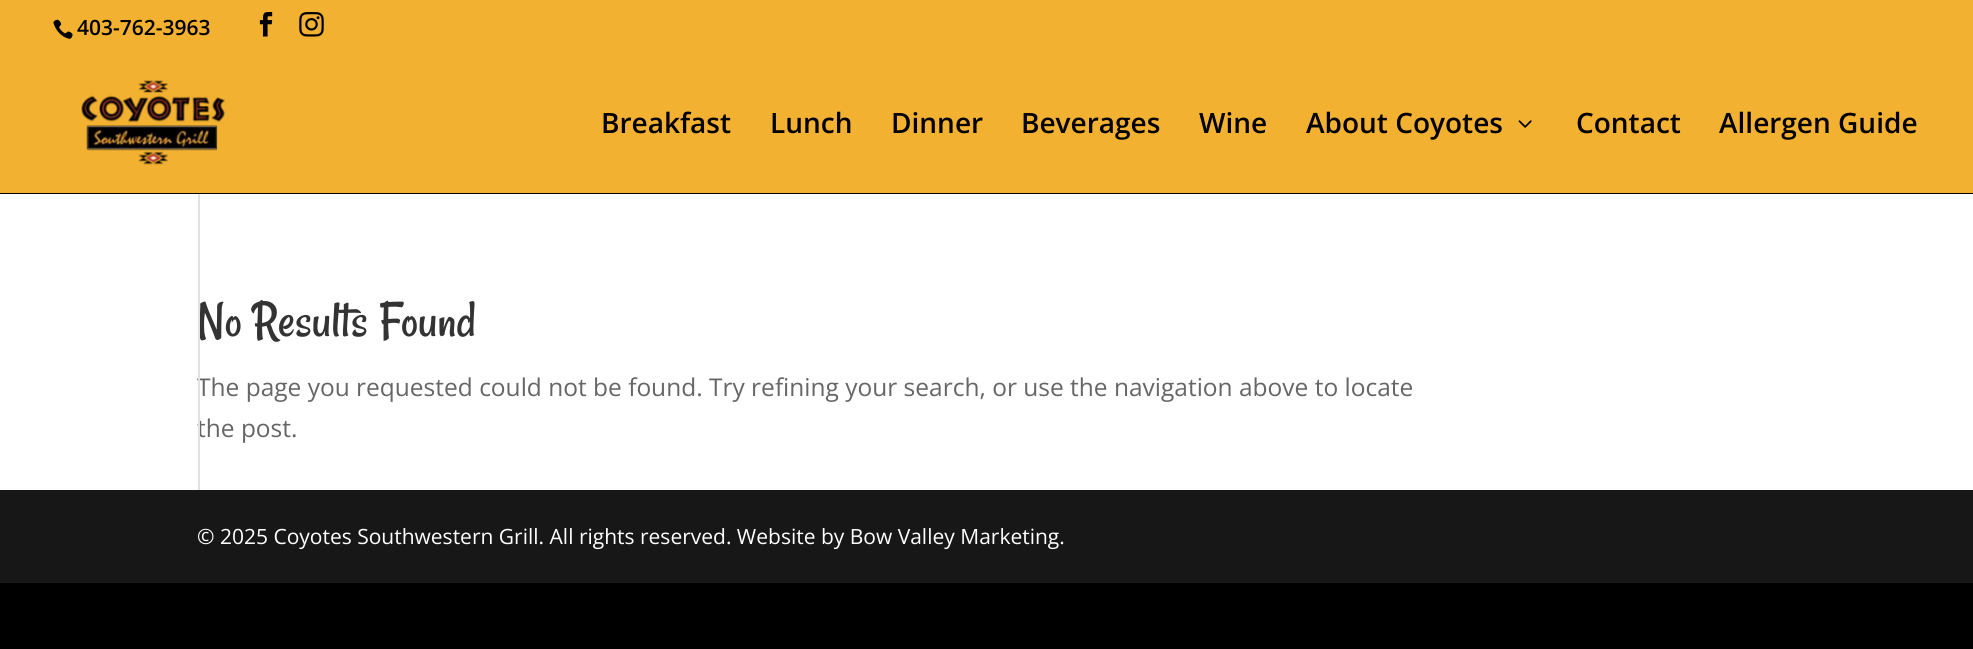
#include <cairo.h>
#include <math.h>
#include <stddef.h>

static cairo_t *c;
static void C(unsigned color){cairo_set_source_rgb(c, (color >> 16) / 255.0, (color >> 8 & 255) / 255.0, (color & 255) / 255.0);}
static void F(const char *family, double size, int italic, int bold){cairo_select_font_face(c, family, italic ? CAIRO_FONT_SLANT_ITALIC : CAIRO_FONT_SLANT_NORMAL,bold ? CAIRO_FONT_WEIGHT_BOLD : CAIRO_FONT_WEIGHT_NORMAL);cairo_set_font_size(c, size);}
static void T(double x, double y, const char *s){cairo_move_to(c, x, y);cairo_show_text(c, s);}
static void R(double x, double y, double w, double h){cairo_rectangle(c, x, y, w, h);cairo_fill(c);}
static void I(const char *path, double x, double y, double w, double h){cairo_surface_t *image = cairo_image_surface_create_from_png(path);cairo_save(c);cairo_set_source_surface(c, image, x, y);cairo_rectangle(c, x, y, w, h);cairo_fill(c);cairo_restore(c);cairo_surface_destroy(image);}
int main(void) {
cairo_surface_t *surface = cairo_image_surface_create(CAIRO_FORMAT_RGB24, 1973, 649);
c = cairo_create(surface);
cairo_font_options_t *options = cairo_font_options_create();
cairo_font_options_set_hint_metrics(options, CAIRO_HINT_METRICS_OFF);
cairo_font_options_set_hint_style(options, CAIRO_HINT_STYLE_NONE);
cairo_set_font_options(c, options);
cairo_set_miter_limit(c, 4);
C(0x000000);
cairo_paint(c);
C(0xf2b130);
R(0,0,1973,193);
I("1.png",53,19,20,20);
F("Open Sans SemiBold",21,0,0);
C(0x000000);
T(77,35,"403-762-3963");
I("2.png",259,12,14,25);
I("3.png",299,12,25,25);
I("4.png",81,80,144,85);
F("Open Sans SemiBold",28,0,0);
T(601,133,"Breakfast");
T(770,133,"Lunch");
T(891,133,"Dinner");
T(1021,133,"Beverages");
T(1199,133,"Wine");
T(1306,133,"About Coyotes");
I("5.png",1518,120,14,8);
T(1576,133,"Contact");
T(1719,133,"Allergen Guide");
C(0xffffff);
R(0,194,1973,296);
F("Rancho",52.5,0,0);
C(0x333333);
T(197,336,"No Results Found");
F("Open Sans",24.5,0,0);
C(0x666666);
T(197,396,"The page you requested could not be found. Try refining your search, or use the navigation above to locate");
T(197,437,"the post.");
C(0xe2e2e2);
R(198,194,2,296);
C(0x171717);
R(0,490,1973,93);
F("Open Sans",21,0,0);
C(0xffffff);
T(197,544,"© 2025 Coyotes Southwestern Grill. All rights reserved. Website by Bow Valley Marketing.");
cairo_surface_write_to_png(surface, "o.png");
cairo_font_options_destroy(options);
cairo_destroy(c);
cairo_surface_destroy(surface);
return 0;
}
